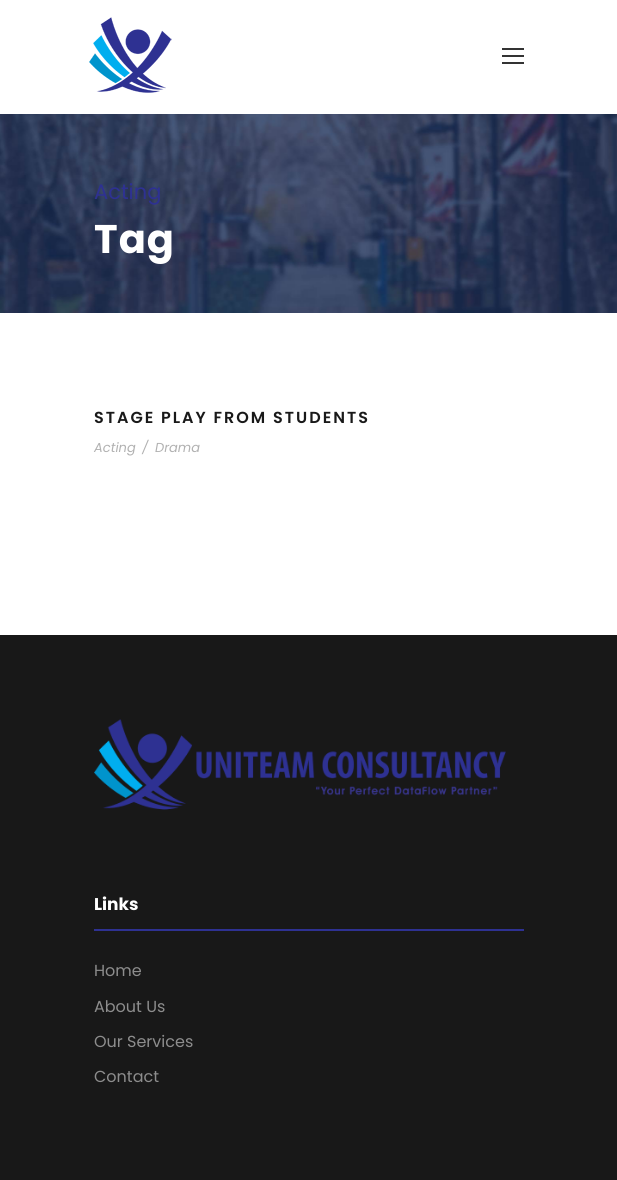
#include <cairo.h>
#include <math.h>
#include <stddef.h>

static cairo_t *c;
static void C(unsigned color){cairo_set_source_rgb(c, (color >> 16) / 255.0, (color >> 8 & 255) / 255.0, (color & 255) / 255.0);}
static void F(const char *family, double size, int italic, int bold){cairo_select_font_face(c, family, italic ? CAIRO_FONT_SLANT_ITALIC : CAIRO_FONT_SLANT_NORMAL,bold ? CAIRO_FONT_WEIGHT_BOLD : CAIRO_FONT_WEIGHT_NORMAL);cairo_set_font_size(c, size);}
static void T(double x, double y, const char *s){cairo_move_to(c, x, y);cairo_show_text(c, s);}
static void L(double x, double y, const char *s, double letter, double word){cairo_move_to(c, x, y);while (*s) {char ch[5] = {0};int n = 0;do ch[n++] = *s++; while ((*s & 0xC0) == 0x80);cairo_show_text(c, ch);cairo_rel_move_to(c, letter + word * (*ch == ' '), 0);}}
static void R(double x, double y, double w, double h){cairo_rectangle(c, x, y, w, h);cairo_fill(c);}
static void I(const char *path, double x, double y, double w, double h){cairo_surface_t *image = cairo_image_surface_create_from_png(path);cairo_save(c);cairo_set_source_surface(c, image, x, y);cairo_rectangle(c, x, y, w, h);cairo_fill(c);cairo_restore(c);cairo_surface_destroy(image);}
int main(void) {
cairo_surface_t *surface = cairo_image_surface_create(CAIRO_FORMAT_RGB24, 617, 1180);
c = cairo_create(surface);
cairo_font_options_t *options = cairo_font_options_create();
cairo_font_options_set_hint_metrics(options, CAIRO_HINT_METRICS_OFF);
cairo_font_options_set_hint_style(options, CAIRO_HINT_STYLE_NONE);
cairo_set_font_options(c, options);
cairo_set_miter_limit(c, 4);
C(0xffffff);
cairo_paint(c);
I("1.png",89,17,83,76);
C(0x333333);
R(502,48,22,2);
R(502,55,22,2);
R(502,62,22,2);
I("2.png",0,114,617,199);
F("Poppins",21,0,0);
C(0x2e3192);
T(94,199,"Acting");
F("Poppins",40,0,1);
C(0xffffff);
L(94,253,"Tag",1,0);
F("Poppins SemiBold",16,0,0);
C(0x191919);
L(94,423,"STAGE PLAY FROM STUDENTS",2,0);
F("Poppins",13,1,0);
C(0xb1b1b1);
T(94,452,"Acting");
T(142,452,"/");
T(155,452,"Drama");
C(0x181818);
R(0,635,617,545);
I("3.png",94,719,412,91);
C(0x2e3192);
R(94,929,430,2);
F("Poppins",17,0,1);
C(0xffffff);
T(94,910,"Links");
F("Poppins",16,0,0);
C(0x8d8d8d);
T(94,976,"Home");
T(94,1012,"About Us");
T(94,1047,"Our Services");
T(94,1082,"Contact");
cairo_surface_write_to_png(surface, "o.png");
cairo_font_options_destroy(options);
cairo_destroy(c);
cairo_surface_destroy(surface);
return 0;
}
